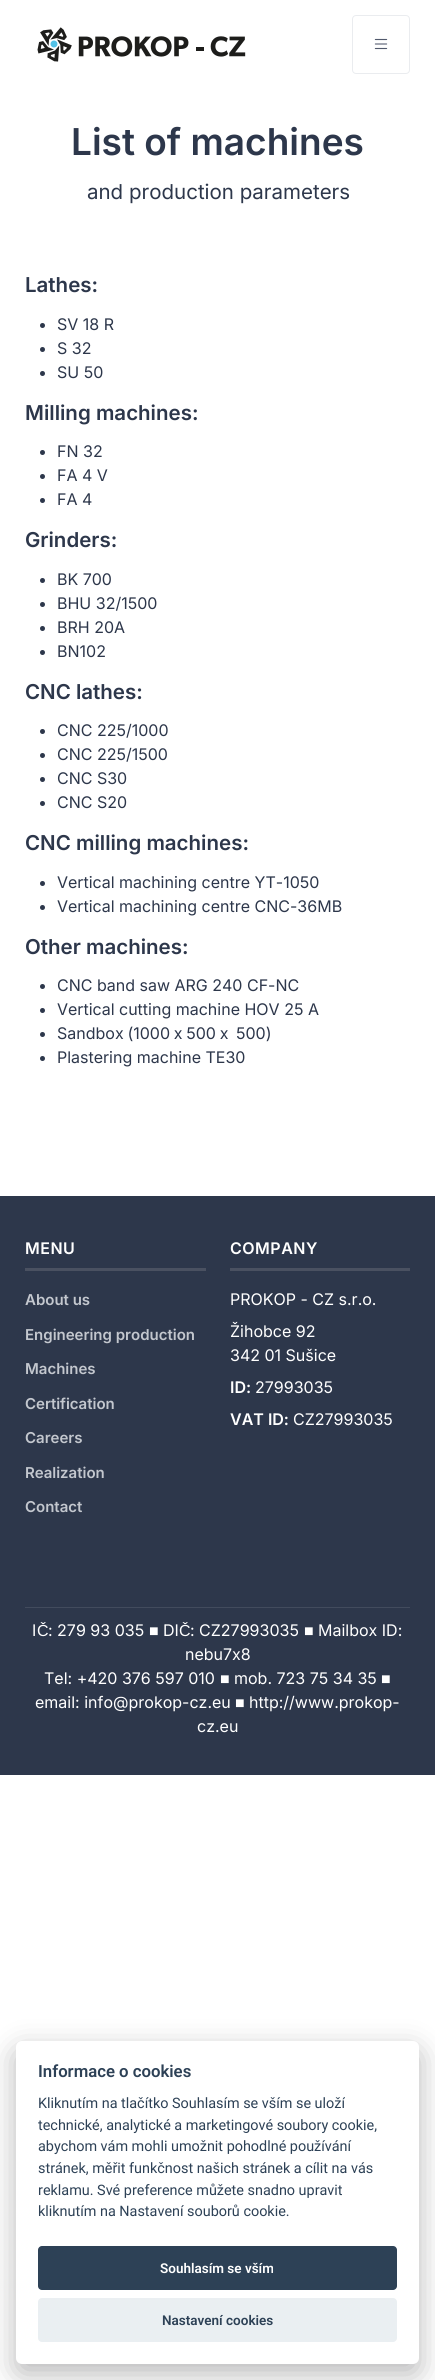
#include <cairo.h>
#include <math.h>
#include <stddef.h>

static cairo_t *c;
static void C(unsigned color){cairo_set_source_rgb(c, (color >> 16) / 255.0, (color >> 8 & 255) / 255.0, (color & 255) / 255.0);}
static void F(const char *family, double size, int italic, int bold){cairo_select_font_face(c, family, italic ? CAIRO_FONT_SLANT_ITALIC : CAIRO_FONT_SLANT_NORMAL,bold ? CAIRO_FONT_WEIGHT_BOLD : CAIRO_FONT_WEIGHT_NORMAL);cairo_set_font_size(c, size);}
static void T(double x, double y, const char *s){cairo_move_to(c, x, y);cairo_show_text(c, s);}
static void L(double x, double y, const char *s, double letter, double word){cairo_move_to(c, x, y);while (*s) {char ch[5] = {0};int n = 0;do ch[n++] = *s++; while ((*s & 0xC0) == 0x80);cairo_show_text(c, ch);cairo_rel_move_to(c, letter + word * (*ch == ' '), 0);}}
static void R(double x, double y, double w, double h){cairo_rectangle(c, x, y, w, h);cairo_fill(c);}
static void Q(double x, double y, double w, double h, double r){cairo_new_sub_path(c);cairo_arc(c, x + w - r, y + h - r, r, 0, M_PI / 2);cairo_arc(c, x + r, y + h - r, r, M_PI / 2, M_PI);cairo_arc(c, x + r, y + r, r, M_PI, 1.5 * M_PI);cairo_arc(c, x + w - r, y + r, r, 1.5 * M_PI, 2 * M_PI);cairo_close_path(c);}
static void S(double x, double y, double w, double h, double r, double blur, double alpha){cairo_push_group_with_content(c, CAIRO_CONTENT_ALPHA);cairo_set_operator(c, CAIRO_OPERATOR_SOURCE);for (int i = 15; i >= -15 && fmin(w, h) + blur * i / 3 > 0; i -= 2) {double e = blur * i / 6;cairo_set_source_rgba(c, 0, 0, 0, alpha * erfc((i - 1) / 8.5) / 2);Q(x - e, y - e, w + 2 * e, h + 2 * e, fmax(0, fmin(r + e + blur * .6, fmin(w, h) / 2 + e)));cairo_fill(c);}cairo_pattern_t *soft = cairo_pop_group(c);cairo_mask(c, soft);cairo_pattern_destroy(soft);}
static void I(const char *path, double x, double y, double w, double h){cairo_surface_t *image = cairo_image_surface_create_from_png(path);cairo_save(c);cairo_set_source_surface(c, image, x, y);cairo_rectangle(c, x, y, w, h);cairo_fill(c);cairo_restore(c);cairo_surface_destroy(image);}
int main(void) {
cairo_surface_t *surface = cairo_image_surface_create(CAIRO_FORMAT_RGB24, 435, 2380);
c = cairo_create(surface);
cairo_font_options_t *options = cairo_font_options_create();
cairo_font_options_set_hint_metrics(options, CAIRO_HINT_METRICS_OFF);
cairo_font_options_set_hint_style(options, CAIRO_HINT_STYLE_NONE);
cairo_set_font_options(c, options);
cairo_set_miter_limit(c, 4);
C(0xffffff);
cairo_paint(c);
I("1.png",37,27,209,35);
Q(352.5,15.5,57,58,3.5);
C(0xeaecef);
cairo_set_line_width(c,1);
cairo_stroke(c);
I("2.png",374,38,14,12);
F("Inter SemiBold",37,0,0);
C(0x2d374b);
T(71,155,"List of machines");
F("Inter",20.5,0,0);
T(87,199,"and production parameters");
F("Inter SemiBold",20.5,0,0);
T(25,292,"Lathes:");
cairo_new_path(c);
cairo_arc(c,42.5,325.5,2.5,0,2 * M_PI);
cairo_fill(c);
F("Inter",16,0,0);
T(57,330,"SV 18 R");
cairo_new_path(c);
cairo_arc(c,42.5,349.5,2.5,0,2 * M_PI);
cairo_fill(c);
T(57,354,"S 32");
cairo_new_path(c);
cairo_arc(c,42.5,373.5,2.5,0,2 * M_PI);
cairo_fill(c);
T(57,378,"SU 50");
F("Inter SemiBold",20.5,0,0);
T(25,420,"Milling machines:");
cairo_new_path(c);
cairo_arc(c,42.5,452.5,2.5,0,2 * M_PI);
cairo_fill(c);
F("Inter",16,0,0);
T(57,457,"FN 32");
cairo_new_path(c);
cairo_arc(c,42.5,476.5,2.5,0,2 * M_PI);
cairo_fill(c);
T(57,481,"FA 4 V");
cairo_new_path(c);
cairo_arc(c,42.5,500.5,2.5,0,2 * M_PI);
cairo_fill(c);
T(57,505,"FA 4");
F("Inter SemiBold",20.5,0,0);
T(25,547,"Grinders:");
cairo_new_path(c);
cairo_arc(c,42.5,580.5,2.5,0,2 * M_PI);
cairo_fill(c);
F("Inter",16,0,0);
T(57,585,"BK 700");
cairo_new_path(c);
cairo_arc(c,42.5,604.5,2.5,0,2 * M_PI);
cairo_fill(c);
T(57,609,"BHU 32/1500");
cairo_new_path(c);
cairo_arc(c,42.5,628.5,2.5,0,2 * M_PI);
cairo_fill(c);
T(57,633,"BRH 20A");
cairo_new_path(c);
cairo_arc(c,42.5,652.5,2.5,0,2 * M_PI);
cairo_fill(c);
T(57,657,"BN102");
F("Inter SemiBold",20.5,0,0);
T(25,699,"CNC lathes:");
cairo_new_path(c);
cairo_arc(c,42.5,731.5,2.5,0,2 * M_PI);
cairo_fill(c);
F("Inter",16,0,0);
T(57,736,"CNC 225/1000");
cairo_new_path(c);
cairo_arc(c,42.5,755.5,2.5,0,2 * M_PI);
cairo_fill(c);
T(57,760,"CNC 225/1500");
cairo_new_path(c);
cairo_arc(c,42.5,779.5,2.5,0,2 * M_PI);
cairo_fill(c);
T(57,784,"CNC S30");
cairo_new_path(c);
cairo_arc(c,42.5,803.5,2.5,0,2 * M_PI);
cairo_fill(c);
T(57,808,"CNC S20");
F("Inter SemiBold",20.5,0,0);
T(25,850,"CNC milling machines:");
cairo_new_path(c);
cairo_arc(c,42.5,883.5,2.5,0,2 * M_PI);
cairo_fill(c);
F("Inter",16,0,0);
T(57,888,"Vertical machining centre YT-1050");
cairo_new_path(c);
cairo_arc(c,42.5,907.5,2.5,0,2 * M_PI);
cairo_fill(c);
T(57,912,"Vertical machining centre CNC-36MB");
F("Inter SemiBold",20.5,0,0);
T(25,954,"Other machines:");
cairo_new_path(c);
cairo_arc(c,42.5,986.5,2.5,0,2 * M_PI);
cairo_fill(c);
F("Inter",16,0,0);
T(57,991,"CNC band saw ARG 240 CF-NC");
cairo_new_path(c);
cairo_arc(c,42.5,1010.5,2.5,0,2 * M_PI);
cairo_fill(c);
T(57,1015,"Vertical cutting machine HOV 25 A");
cairo_new_path(c);
cairo_arc(c,42.5,1034.5,2.5,0,2 * M_PI);
cairo_fill(c);
L(57,1039,"Sandbox (1000 x 500 x",0,-.75);
L(236,1039,"500)",0,-.75);
cairo_new_path(c);
cairo_arc(c,42.5,1058.5,2.5,0,2 * M_PI);
cairo_fill(c);
T(57,1063,"Plastering machine TE30");
R(0,1196,435,579);
C(0x424b5d);
R(25,1607,385,1);
C(0x4a5161);
R(25,1268,181,3);
F("Inter SemiBold",16,0,0);
C(0xffffff);
L(25,1254,"MENU",.5,0);
F("Inter SemiBold",15,0,0);
C(0xc3c7ce);
T(25,1305,"About us");
T(25,1340,"Engineering production");
T(25,1374,"Machines");
T(25,1409,"Certification");
T(25,1443,"Careers");
T(25,1478,"Realization");
T(25,1512,"Contact");
C(0x4a5161);
R(230,1268,180,3);
F("Inter SemiBold",16,0,0);
C(0xffffff);
L(230,1254,"COMPANY",.5,0);
F("Inter",16,0,0);
T(230,1305,"PROKOP - CZ s.r.o.");
T(230,1337,"Žihobce 92");
T(230,1361,"342 01 Sušice");
F("Inter SemiBold",16,0,0);
T(230,1393,"ID:");
F("Inter",16,0,0);
T(255,1393,"27993035");
F("Inter SemiBold",16,0,0);
T(230,1425,"VAT ID:");
F("Inter",16,0,0);
T(293,1425,"CZ27993035");
T(32,1636,"I");
F("Liberation Sans",16,0,0);
T(37,1636,"Č");
F("Inter",16,0,0);
T(48,1636,": 279 93 035");
F("Liberation Sans",16,0,0);
T(149,1636,"■");
F("Inter",16,0,0);
T(163,1636,"DI");
F("Liberation Sans",16,0,0);
T(179,1636,"Č");
F("Inter",16,0,0);
T(190,1636,": CZ27993035");
F("Liberation Sans",16,0,0);
T(304,1636,"■");
F("Inter",16,0,0);
T(318,1636,"Mailbox ID:");
T(185,1660,"nebu7x8");
T(44,1684,"Tel: +420 376 597 010");
F("Liberation Sans",16,0,0);
T(220,1684,"■");
F("Inter",16,0,0);
T(234,1684,"mob. 723 75 34 35");
F("Liberation Sans",16,0,0);
T(381,1684,"■");
F("Inter",16,0,0);
T(35,1708,"email: info@prokop-cz.eu");
F("Liberation Sans",16,0,0);
T(235,1708,"■");
F("Inter",16,0,0);
T(249,1708,"http://www.prokop-");
T(197,1732,"cz.eu");
C(0x020203);
S(16,2051,403,323,6,15,.28);
C(0xffffff);
Q(16,2041,403,323,6);
cairo_fill(c);
F("Roboto SemiBold",16.75,0,0);
C(0x2d4156);
T(38,2077,"Informace o cookies");
F("Roboto",14.4,0,0);
T(38,2108,"Kliknutím na tlačítko Souhlasím se vším se uloží");
T(38,2130,"technické, analytické a marketingové soubory cookie,");
T(38,2151,"abychom vám mohli umožnit pohodlné používání");
T(38,2173,"stránek, měřit funkčnost našich stránek a cílit na vás");
T(38,2195,"reklamu. Své preference můžete snadno upravit");
T(38,2216,"kliknutím na Nastavení souborů cookie.");
Q(38,2246,359,44,4);
cairo_fill(c);
F("Roboto SemiBold",13.5,0,0);
C(0xffffff);
T(160,2273,"Souhlasím se vším");
C(0xeaeff2);
Q(38,2298,359,44,4);
cairo_fill(c);
C(0x2d4156);
T(162,2325,"Nastavení cookies");
cairo_surface_write_to_png(surface, "o.png");
cairo_font_options_destroy(options);
cairo_destroy(c);
cairo_surface_destroy(surface);
return 0;
}
